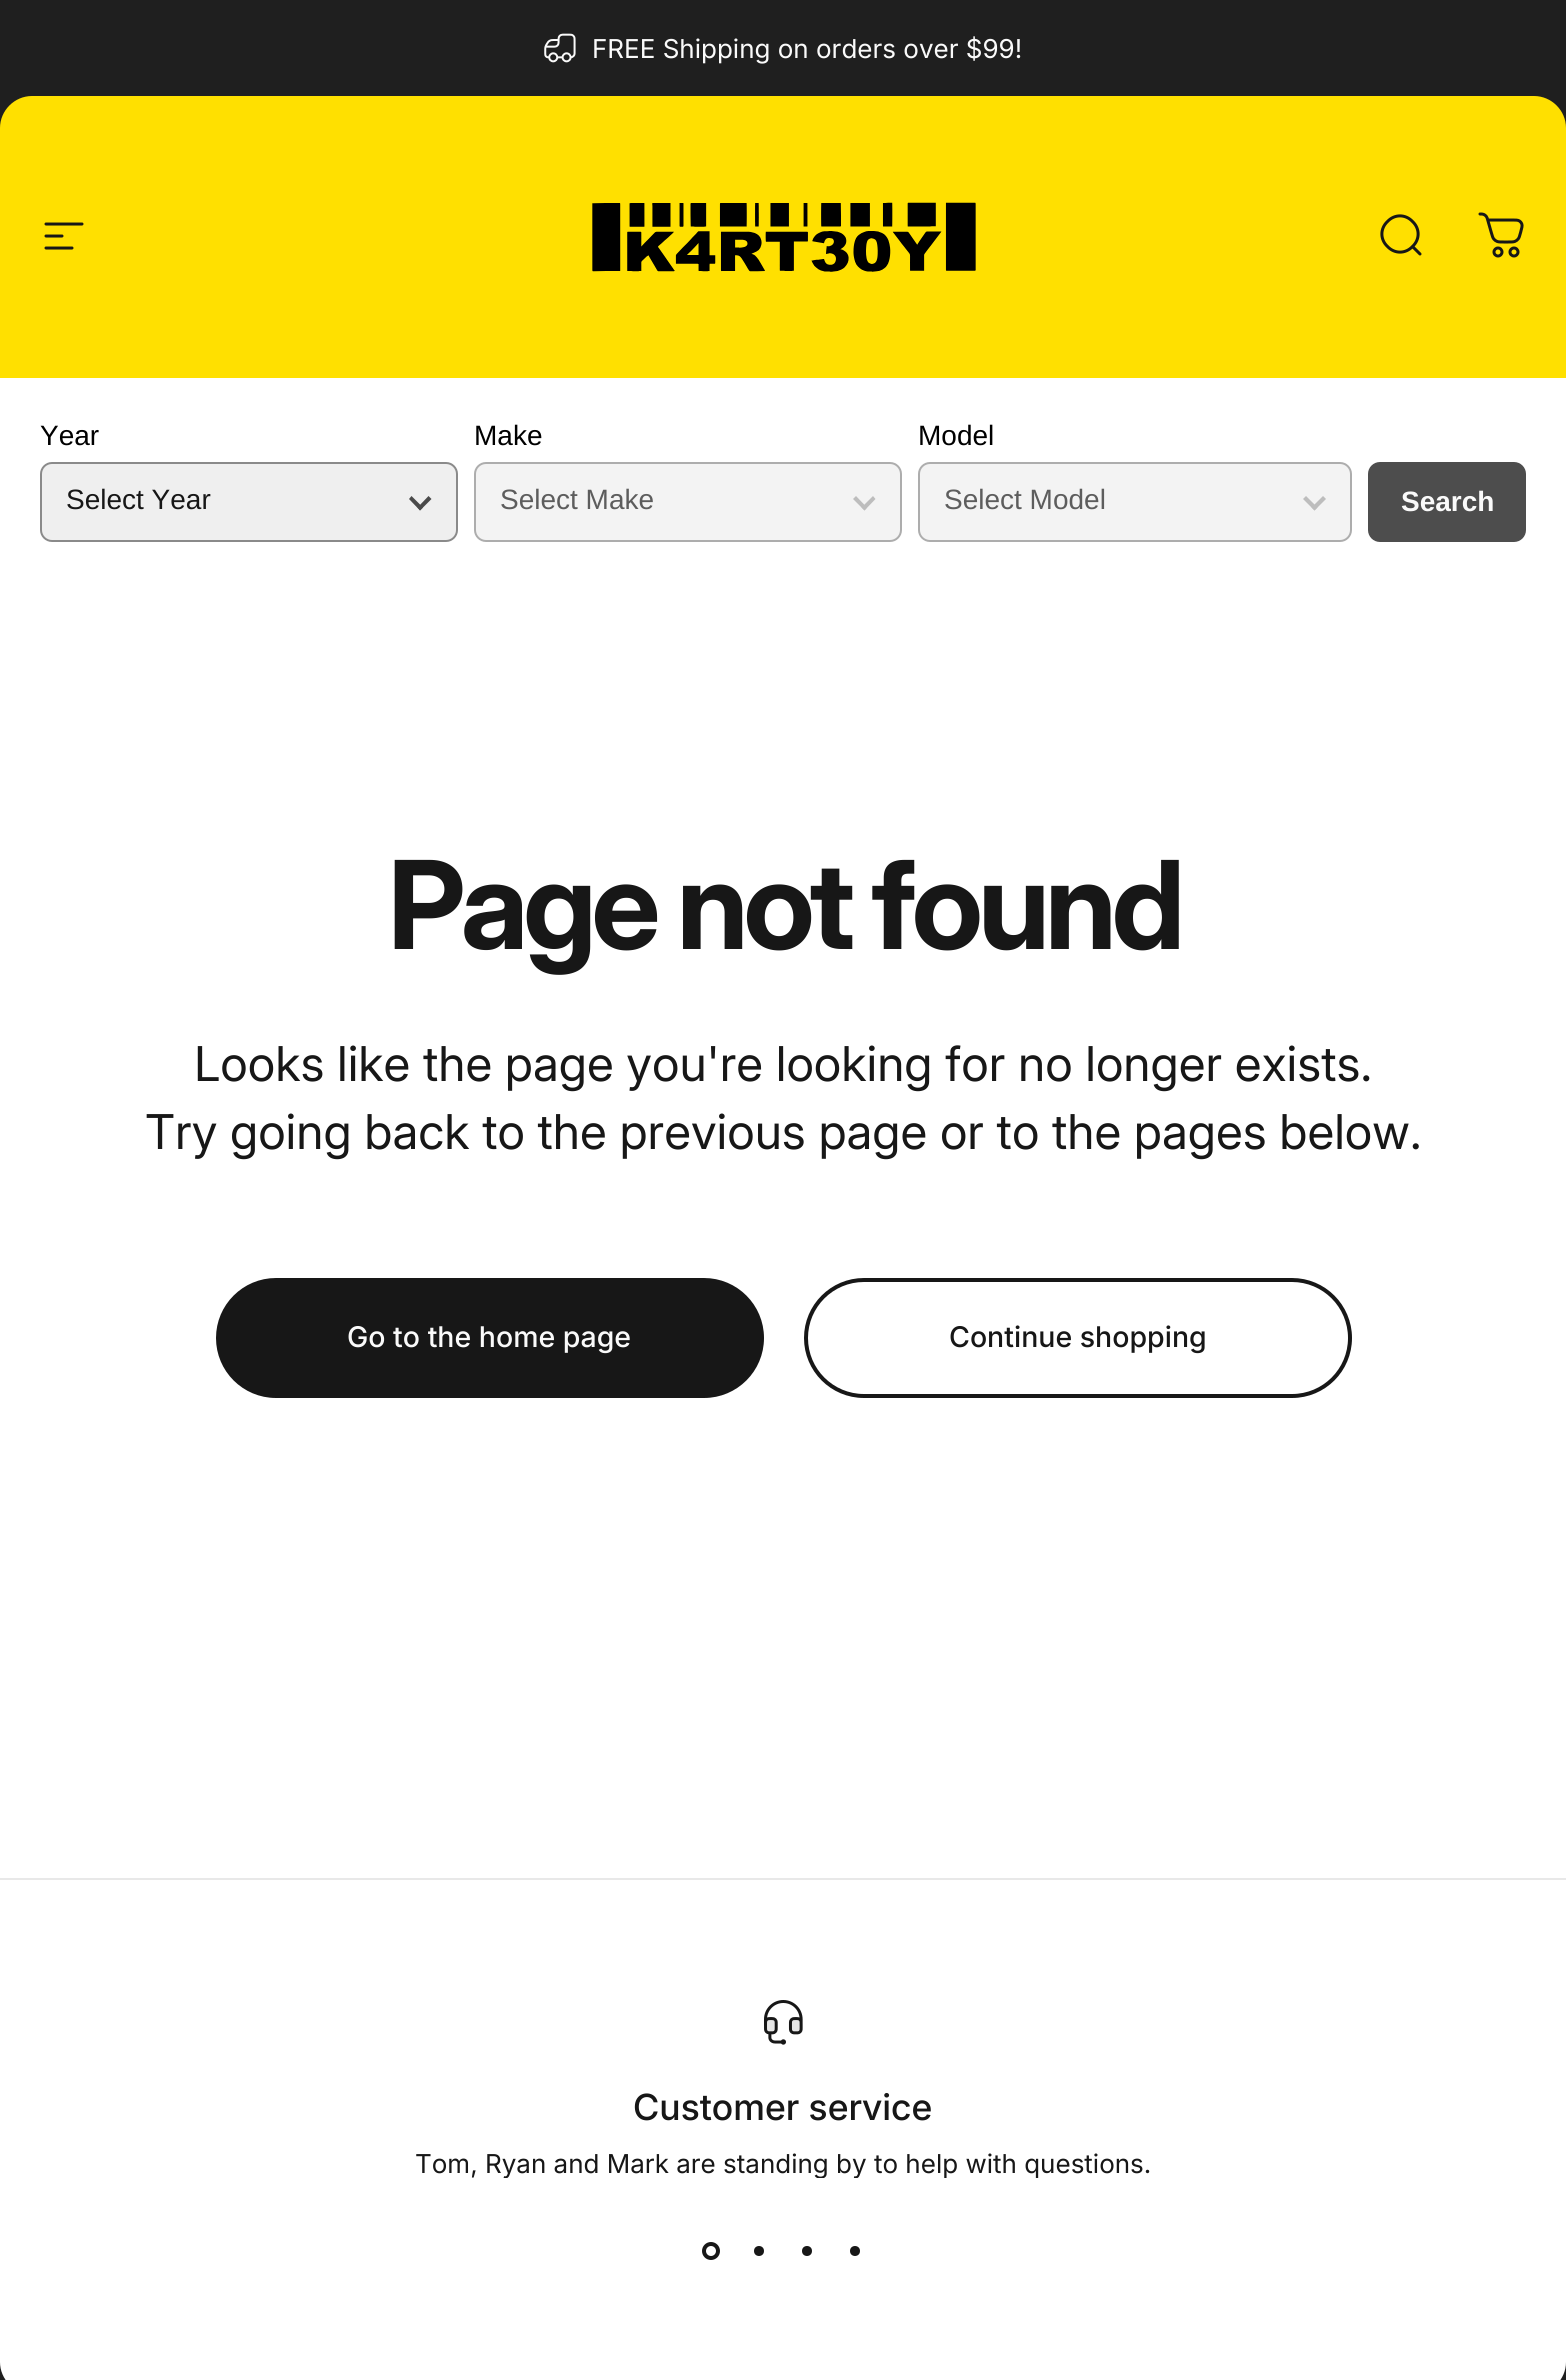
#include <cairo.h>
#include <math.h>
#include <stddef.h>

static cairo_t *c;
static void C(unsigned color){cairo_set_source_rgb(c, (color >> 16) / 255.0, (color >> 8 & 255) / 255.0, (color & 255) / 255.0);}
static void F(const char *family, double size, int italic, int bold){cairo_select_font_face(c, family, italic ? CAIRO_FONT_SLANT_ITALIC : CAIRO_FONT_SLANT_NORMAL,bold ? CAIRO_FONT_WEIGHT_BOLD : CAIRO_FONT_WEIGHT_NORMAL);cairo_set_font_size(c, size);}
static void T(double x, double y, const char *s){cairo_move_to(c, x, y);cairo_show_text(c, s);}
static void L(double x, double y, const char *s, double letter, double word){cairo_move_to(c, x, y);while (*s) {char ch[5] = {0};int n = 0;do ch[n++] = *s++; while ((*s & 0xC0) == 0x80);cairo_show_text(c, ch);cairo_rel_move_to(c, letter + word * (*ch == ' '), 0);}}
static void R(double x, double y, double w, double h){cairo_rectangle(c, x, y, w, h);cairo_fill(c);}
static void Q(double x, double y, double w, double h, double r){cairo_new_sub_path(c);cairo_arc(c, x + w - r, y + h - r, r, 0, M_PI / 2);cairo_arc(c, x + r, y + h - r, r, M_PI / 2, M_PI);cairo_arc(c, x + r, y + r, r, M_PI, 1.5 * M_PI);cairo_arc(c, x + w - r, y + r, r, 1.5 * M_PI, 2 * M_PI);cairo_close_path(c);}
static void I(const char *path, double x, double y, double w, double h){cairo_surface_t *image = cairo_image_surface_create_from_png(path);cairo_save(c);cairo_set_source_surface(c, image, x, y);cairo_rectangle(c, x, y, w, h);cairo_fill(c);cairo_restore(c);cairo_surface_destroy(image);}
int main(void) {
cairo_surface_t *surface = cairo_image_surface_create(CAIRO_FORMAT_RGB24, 1566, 2380);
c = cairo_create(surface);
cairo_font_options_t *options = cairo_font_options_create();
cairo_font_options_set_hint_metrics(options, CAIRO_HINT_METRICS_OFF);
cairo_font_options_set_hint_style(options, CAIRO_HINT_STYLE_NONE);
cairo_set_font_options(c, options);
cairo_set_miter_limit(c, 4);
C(0xffffff);
cairo_paint(c);
C(0x1f1f1f);
R(0,0,1566,32);
cairo_new_path(c);
cairo_move_to(c,32,0);
cairo_line_to(c,1534,0);
cairo_curve_to(c,1551.5,0,1566,14.5,1566,32);
cairo_line_to(c,1566,128);
cairo_line_to(c,0,128);
cairo_line_to(c,0,32);
cairo_curve_to(c,0,14.5,14.5,0,32,0);
cairo_close_path(c);
cairo_fill(c);
I("1.png",544,33,32,30);
F("Inter",26,0,0);
C(0xfafafa);
T(592,58,"FREE Shipping on orders over $99!");
C(0xffe000);
cairo_new_path(c);
cairo_move_to(c,32,96);
cairo_line_to(c,1534,96);
cairo_curve_to(c,1551.5,96,1566,110.5,1566,128);
cairo_line_to(c,1566,378);
cairo_line_to(c,0,378);
cairo_line_to(c,0,128);
cairo_curve_to(c,0,110.5,14.5,96,32,96);
cairo_close_path(c);
cairo_fill(c);
cairo_new_path(c);
cairo_move_to(c,46,224);
cairo_line_to(c,82,224);
cairo_move_to(c,46,236);
cairo_line_to(c,62,236);
cairo_move_to(c,46,248);
cairo_line_to(c,72,248);
C(0x171717);
cairo_set_line_width(c,3);
cairo_set_line_cap(c,CAIRO_LINE_CAP_ROUND);
cairo_stroke(c);
I("2.png",592,202,384,70);
cairo_new_path(c);
cairo_move_to(c,1420,254);
cairo_line_to(c,1412.5,246.5);
cairo_move_to(c,1412.5,246.5);
cairo_curve_to(c,1420,239.5,1420,228.5,1412.5,221.5);
cairo_curve_to(c,1405.5,214,1394.5,214,1387.5,221.5);
cairo_curve_to(c,1380,228.5,1380,239.5,1387.5,246.5);
cairo_curve_to(c,1394.5,254,1405.5,254,1412.5,246.5);
cairo_close_path(c);
cairo_stroke(c);
I("3.png",1478,212,46,46);
F("Liberation Sans",28,0,0);
C(0x000000);
T(40,445,"Year");
C(0xefefef);
Q(41,463,416,78,11);
cairo_fill_preserve(c);
C(0x8a8a8a);
cairo_set_line_width(c,2);
cairo_set_line_cap(c,CAIRO_LINE_CAP_BUTT);
cairo_stroke(c);
C(0x171717);
T(66,509,"Select Year");
C(0x4a4a4a);
cairo_new_path(c);
cairo_move_to(c,428.5,496);
cairo_line_to(c,431.5,499);
cairo_line_to(c,420,510.5);
cairo_line_to(c,417.5,507.5);
cairo_close_path(c);
cairo_fill(c);
cairo_new_path(c);
cairo_move_to(c,411.5,496);
cairo_line_to(c,423,507.5);
cairo_line_to(c,420,510.5);
cairo_line_to(c,409,499);
cairo_close_path(c);
cairo_fill(c);
C(0x000000);
T(474,445,"Make");
C(0x4a4a4a);
cairo_new_path(c);
cairo_move_to(c,873,496);
cairo_line_to(c,875.5,499);
cairo_line_to(c,864.5,510.5);
cairo_line_to(c,861.5,507.5);
cairo_close_path(c);
cairo_fill(c);
cairo_new_path(c);
cairo_move_to(c,856,496);
cairo_line_to(c,867,507.5);
cairo_line_to(c,864.5,510.5);
cairo_line_to(c,853,499);
cairo_close_path(c);
cairo_fill(c);
cairo_set_source_rgba(c,0.937,0.937,0.937,0.7);
Q(475,463,426,78,11);
cairo_fill_preserve(c);
C(0xadadad);
cairo_stroke(c);
C(0x5d5d5d);
T(500,509,"Select Make");
C(0x000000);
T(918,445,"Model");
C(0x4a4a4a);
cairo_new_path(c);
cairo_move_to(c,1323,496);
cairo_line_to(c,1326,499);
cairo_line_to(c,1314.5,510.5);
cairo_line_to(c,1311.5,507.5);
cairo_close_path(c);
cairo_fill(c);
cairo_new_path(c);
cairo_move_to(c,1306,496);
cairo_line_to(c,1317.5,507.5);
cairo_line_to(c,1314.5,510.5);
cairo_line_to(c,1303,499);
cairo_close_path(c);
cairo_fill(c);
cairo_set_source_rgba(c,0.937,0.937,0.937,0.7);
Q(919,463,432,78,11);
cairo_fill_preserve(c);
C(0xadadad);
cairo_stroke(c);
C(0x5d5d5d);
T(944,509,"Select Model");
C(0x4d4d4d);
Q(1368,462,158,80,12);
cairo_fill(c);
F("Liberation Sans",28,0,1);
C(0xfafafa);
T(1401,511,"Search");
F("Inter",122.5,0,1);
C(0x171717);
L(388,949,"Page not found",-4.9,0);
F("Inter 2",48,0,0);
T(194,1081,"Looks like the page you're looking for no longer exists.");
T(145,1149,"Try going back to the previous page or to the pages below.");
Q(218,1280,544,116,58);
cairo_fill_preserve(c);
cairo_set_line_width(c,4);
cairo_stroke(c);
F("Inter 2 Medium",28.5,0,0);
C(0xfafafa);
T(347,1347,"Go to the home page");
Q(806,1280,544,116,58);
C(0x171717);
cairo_stroke(c);
T(949,1347,"Continue shopping");
C(0x1f1f1f);
R(0,2362,1566,18);
C(0xffffff);
cairo_new_path(c);
cairo_move_to(c,0,1878);
cairo_line_to(c,1566,1878);
cairo_line_to(c,1566,2362);
cairo_curve_to(c,1566,2379.5,1551.5,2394,1534,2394);
cairo_line_to(c,32,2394);
cairo_curve_to(c,14.5,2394,0,2379.5,0,2362);
cairo_close_path(c);
cairo_fill(c);
C(0xe8e8e8);
R(0,1878,1566,2);
I("4.png",764,2000,39,45);
F("Inter Medium",36,0,0);
C(0x171717);
T(633,2120,"Customer service");
cairo_save(c);
cairo_rectangle(c,40,1998,1486,180);
cairo_clip(c);
F("Inter",26,0,0);
T(415,2173,"Tom, Ryan and Mark are standing by to help with questions.");
cairo_restore(c);
cairo_new_path(c);
cairo_arc(c,711,2251,7,0,2 * M_PI);
cairo_stroke(c);
cairo_arc(c,759,2251,5,0,2 * M_PI);
cairo_fill(c);
cairo_arc(c,807,2251,5,0,2 * M_PI);
cairo_fill(c);
cairo_arc(c,855,2251,5,0,2 * M_PI);
cairo_fill(c);
cairo_surface_write_to_png(surface, "o.png");
cairo_font_options_destroy(options);
cairo_destroy(c);
cairo_surface_destroy(surface);
return 0;
}
